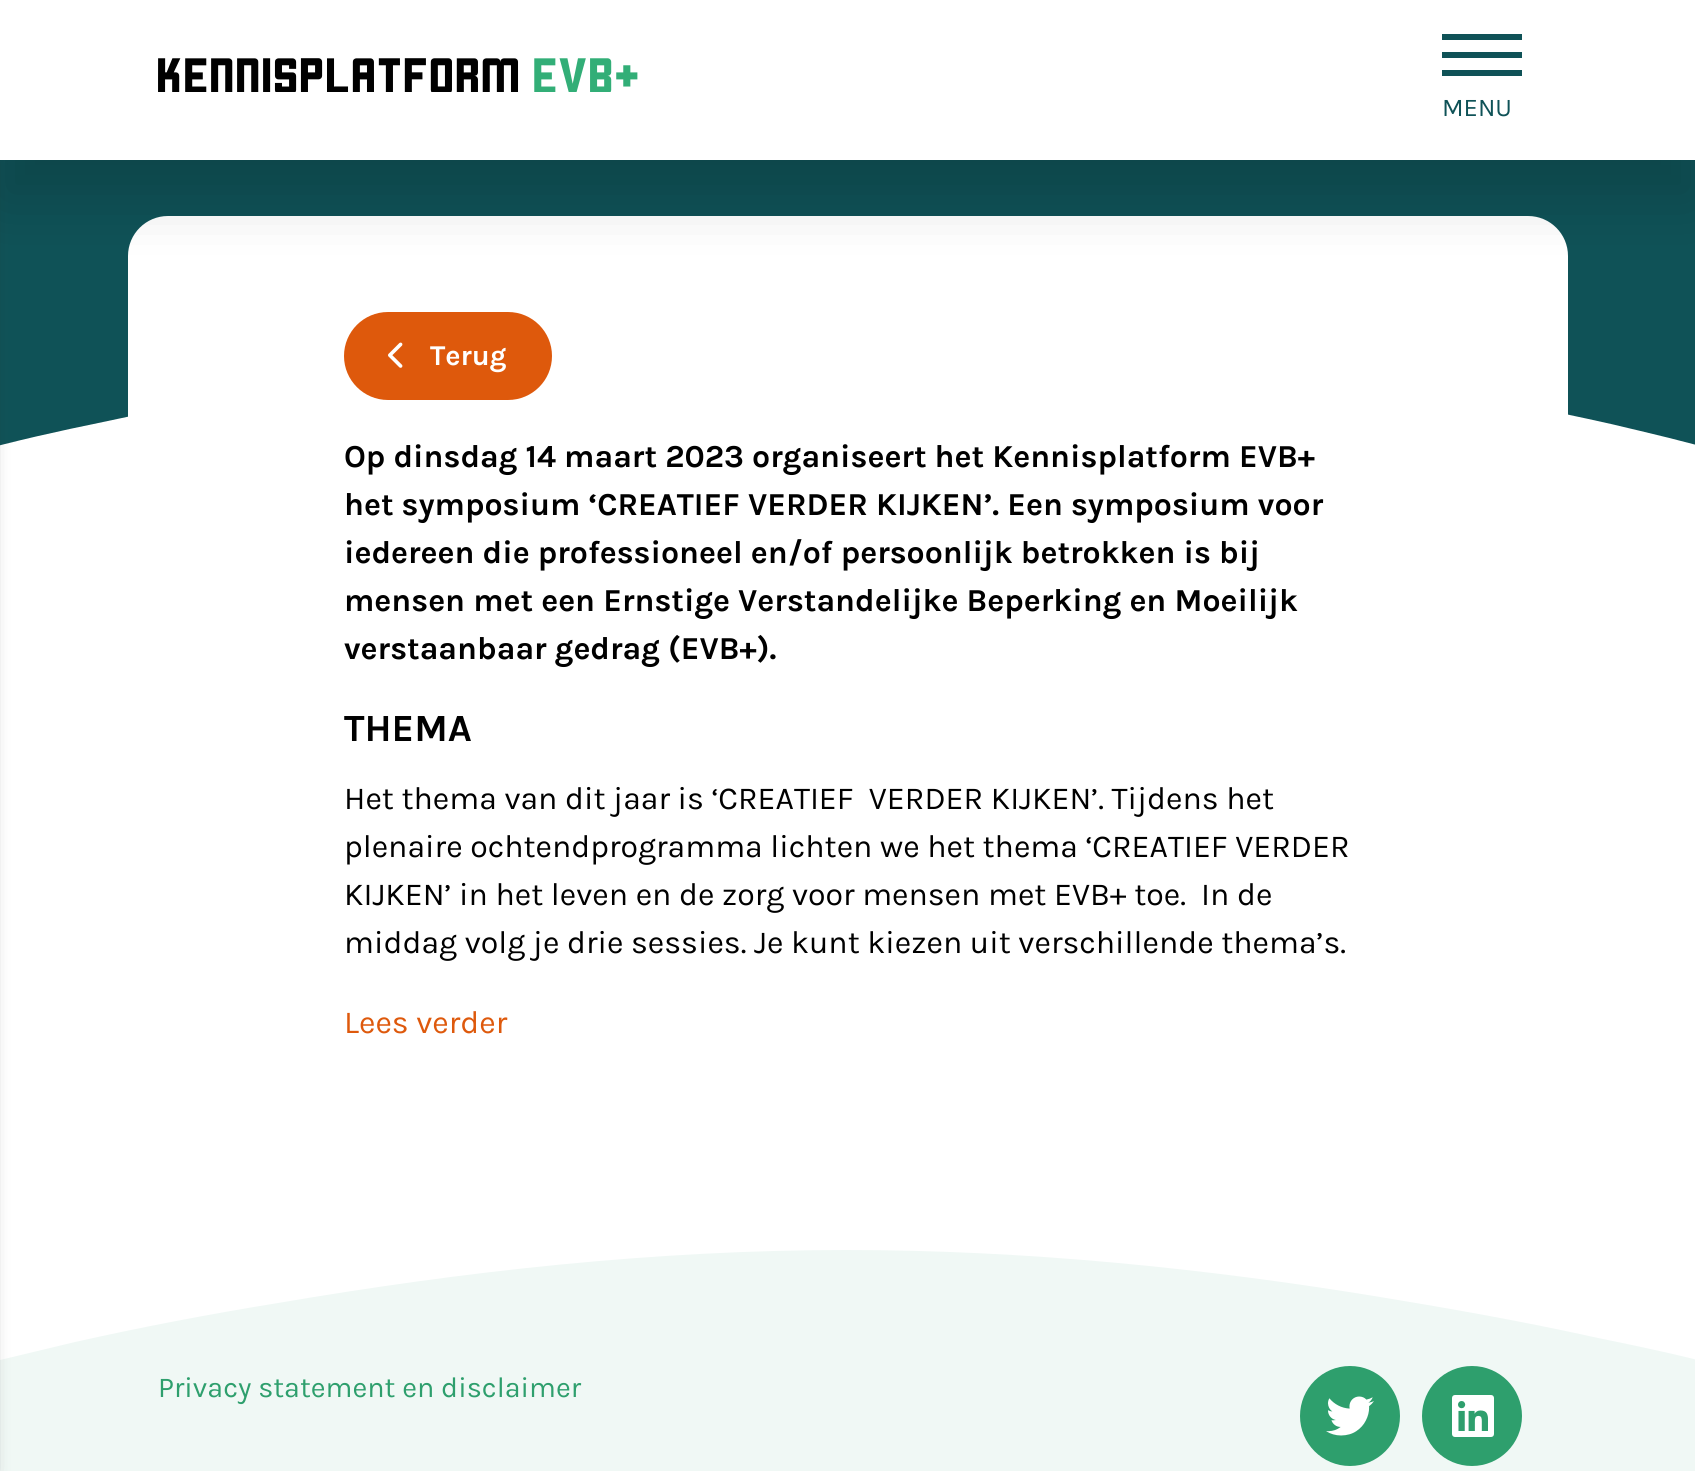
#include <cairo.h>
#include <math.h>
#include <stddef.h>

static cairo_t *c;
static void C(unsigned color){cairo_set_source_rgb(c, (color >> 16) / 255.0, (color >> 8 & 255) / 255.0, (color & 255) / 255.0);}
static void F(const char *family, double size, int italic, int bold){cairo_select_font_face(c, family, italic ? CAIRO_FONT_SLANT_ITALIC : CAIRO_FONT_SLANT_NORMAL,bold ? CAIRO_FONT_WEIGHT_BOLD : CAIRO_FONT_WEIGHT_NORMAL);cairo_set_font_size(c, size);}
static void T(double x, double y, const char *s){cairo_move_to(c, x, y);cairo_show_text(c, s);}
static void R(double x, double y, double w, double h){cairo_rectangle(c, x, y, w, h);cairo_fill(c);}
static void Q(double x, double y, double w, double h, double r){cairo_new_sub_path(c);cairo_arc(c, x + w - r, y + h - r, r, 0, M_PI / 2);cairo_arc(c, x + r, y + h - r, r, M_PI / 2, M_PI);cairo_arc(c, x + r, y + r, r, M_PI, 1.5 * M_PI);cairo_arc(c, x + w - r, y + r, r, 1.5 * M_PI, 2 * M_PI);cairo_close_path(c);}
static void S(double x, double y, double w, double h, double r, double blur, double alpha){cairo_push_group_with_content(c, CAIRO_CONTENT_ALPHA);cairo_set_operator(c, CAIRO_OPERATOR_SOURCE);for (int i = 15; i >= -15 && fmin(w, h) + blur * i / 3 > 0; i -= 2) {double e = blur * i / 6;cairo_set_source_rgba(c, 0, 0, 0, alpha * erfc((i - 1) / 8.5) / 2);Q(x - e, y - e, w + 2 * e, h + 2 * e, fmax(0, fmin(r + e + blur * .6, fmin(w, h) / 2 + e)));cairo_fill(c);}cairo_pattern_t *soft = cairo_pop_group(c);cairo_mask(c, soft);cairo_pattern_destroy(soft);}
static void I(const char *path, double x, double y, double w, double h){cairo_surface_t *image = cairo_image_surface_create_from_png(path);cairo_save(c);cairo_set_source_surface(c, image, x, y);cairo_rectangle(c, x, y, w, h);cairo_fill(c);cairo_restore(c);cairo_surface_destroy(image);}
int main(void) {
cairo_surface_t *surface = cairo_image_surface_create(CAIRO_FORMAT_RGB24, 1695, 1471);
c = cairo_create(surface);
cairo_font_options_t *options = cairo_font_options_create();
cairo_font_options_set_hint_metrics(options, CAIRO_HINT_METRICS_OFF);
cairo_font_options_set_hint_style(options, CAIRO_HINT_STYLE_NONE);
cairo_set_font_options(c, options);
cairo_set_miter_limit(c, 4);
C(0xffffff);
cairo_paint(c);
C(0x0f5257);
R(0,160,1695,154);
cairo_new_path(c);
cairo_move_to(c,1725,453);
cairo_curve_to(c,1688,442,1649,433,1611,424);
cairo_curve_to(c,1549,410,1486,398,1423,387);
cairo_curve_to(c,1238,354,1050,333,862,333);
cairo_curve_to(c,682,333,502,352,325,381);
cairo_curve_to(c,250,393,177,406,103,422);
cairo_curve_to(c,59,431,14,441,-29,453);
cairo_line_to(c,-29,314);
cairo_line_to(c,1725,314);
cairo_close_path(c);
cairo_fill(c);
C(0xf0f8f5);
R(0,1368,1695,103);
cairo_new_path(c);
cairo_move_to(c,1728,1368);
cairo_line_to(c,-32,1368);
cairo_line_to(c,0,1360);
cairo_line_to(c,75,1342);
cairo_curve_to(c,142,1327,210,1314,278,1303);
cairo_curve_to(c,465,1271,656,1250,846,1250);
cairo_curve_to(c,1025,1250,1204,1268,1380,1297);
cairo_curve_to(c,1453,1309,1526,1322,1598,1338);
cairo_curve_to(c,1642,1347,1685,1356,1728,1368);
cairo_close_path(c);
cairo_fill(c);
C(0x323232);
S(-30,160,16,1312,0,10,.75);
C(0xffffff);
Q(128,216,1440,958,40);
cairo_fill(c);
C(0x000000);
S(0,40,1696,160,0,30,.15);
C(0xffffff);
R(0,0,1695,160);
I("1.png",158,58,480,34);
C(0x0f5257);
R(1442,34,80,6);
R(1442,52,80,6);
R(1442,70,80,6);
F("Karla",25.5,0,0);
T(1442,116,"MENU");
C(0xde590c);
Q(344,312,208,88,44);
cairo_fill(c);
I("2.png",388,342,15,26);
F("Karla",28.75,0,1);
C(0xffffff);
T(430,365,"Terug");
F("Karla",32,0,1);
C(0x000000);
T(344,467,"Op dinsdag 14 maart 2023 organiseert het Kennisplatform EVB+");
T(344,515,"het symposium ‘CREATIEF VERDER KIJKEN’. Een symposium voor");
T(344,563,"iedereen die professioneel en/of persoonlijk betrokken is bij");
T(344,611,"mensen met een Ernstige Verstandelijke Beperking en Moeilijk");
T(344,659,"verstaanbaar gedrag (EVB+).");
F("Karla",38.5,0,1);
T(344,741,"THEMA");
F("Karla",32,0,0);
T(344,809,"Het thema van dit jaar is ‘CREATIEF  VERDER KIJKEN’. Tijdens het");
T(344,857,"plenaire ochtendprogramma lichten we het thema ‘CREATIEF VERDER");
T(344,905,"KIJKEN’ in het leven en de zorg voor mensen met EVB+ toe.  In de");
T(344,953,"middag volg je drie sessies. Je kunt kiezen uit verschillende thema’s.");
C(0xde590c);
T(344,1033,"Lees verder");
F("Karla",28.75,0,0);
C(0x2e9f6d);
T(158,1397,"Privacy statement en disclaimer");
cairo_new_path(c);
cairo_arc(c,1350,1416,50,0,2 * M_PI);
cairo_fill(c);
I("3.png",1326,1396,48,40);
cairo_arc(c,1472,1416,50,0,2 * M_PI);
cairo_fill(c);
I("4.png",1452,1395,42,42);
cairo_surface_write_to_png(surface, "o.png");
cairo_font_options_destroy(options);
cairo_destroy(c);
cairo_surface_destroy(surface);
return 0;
}
